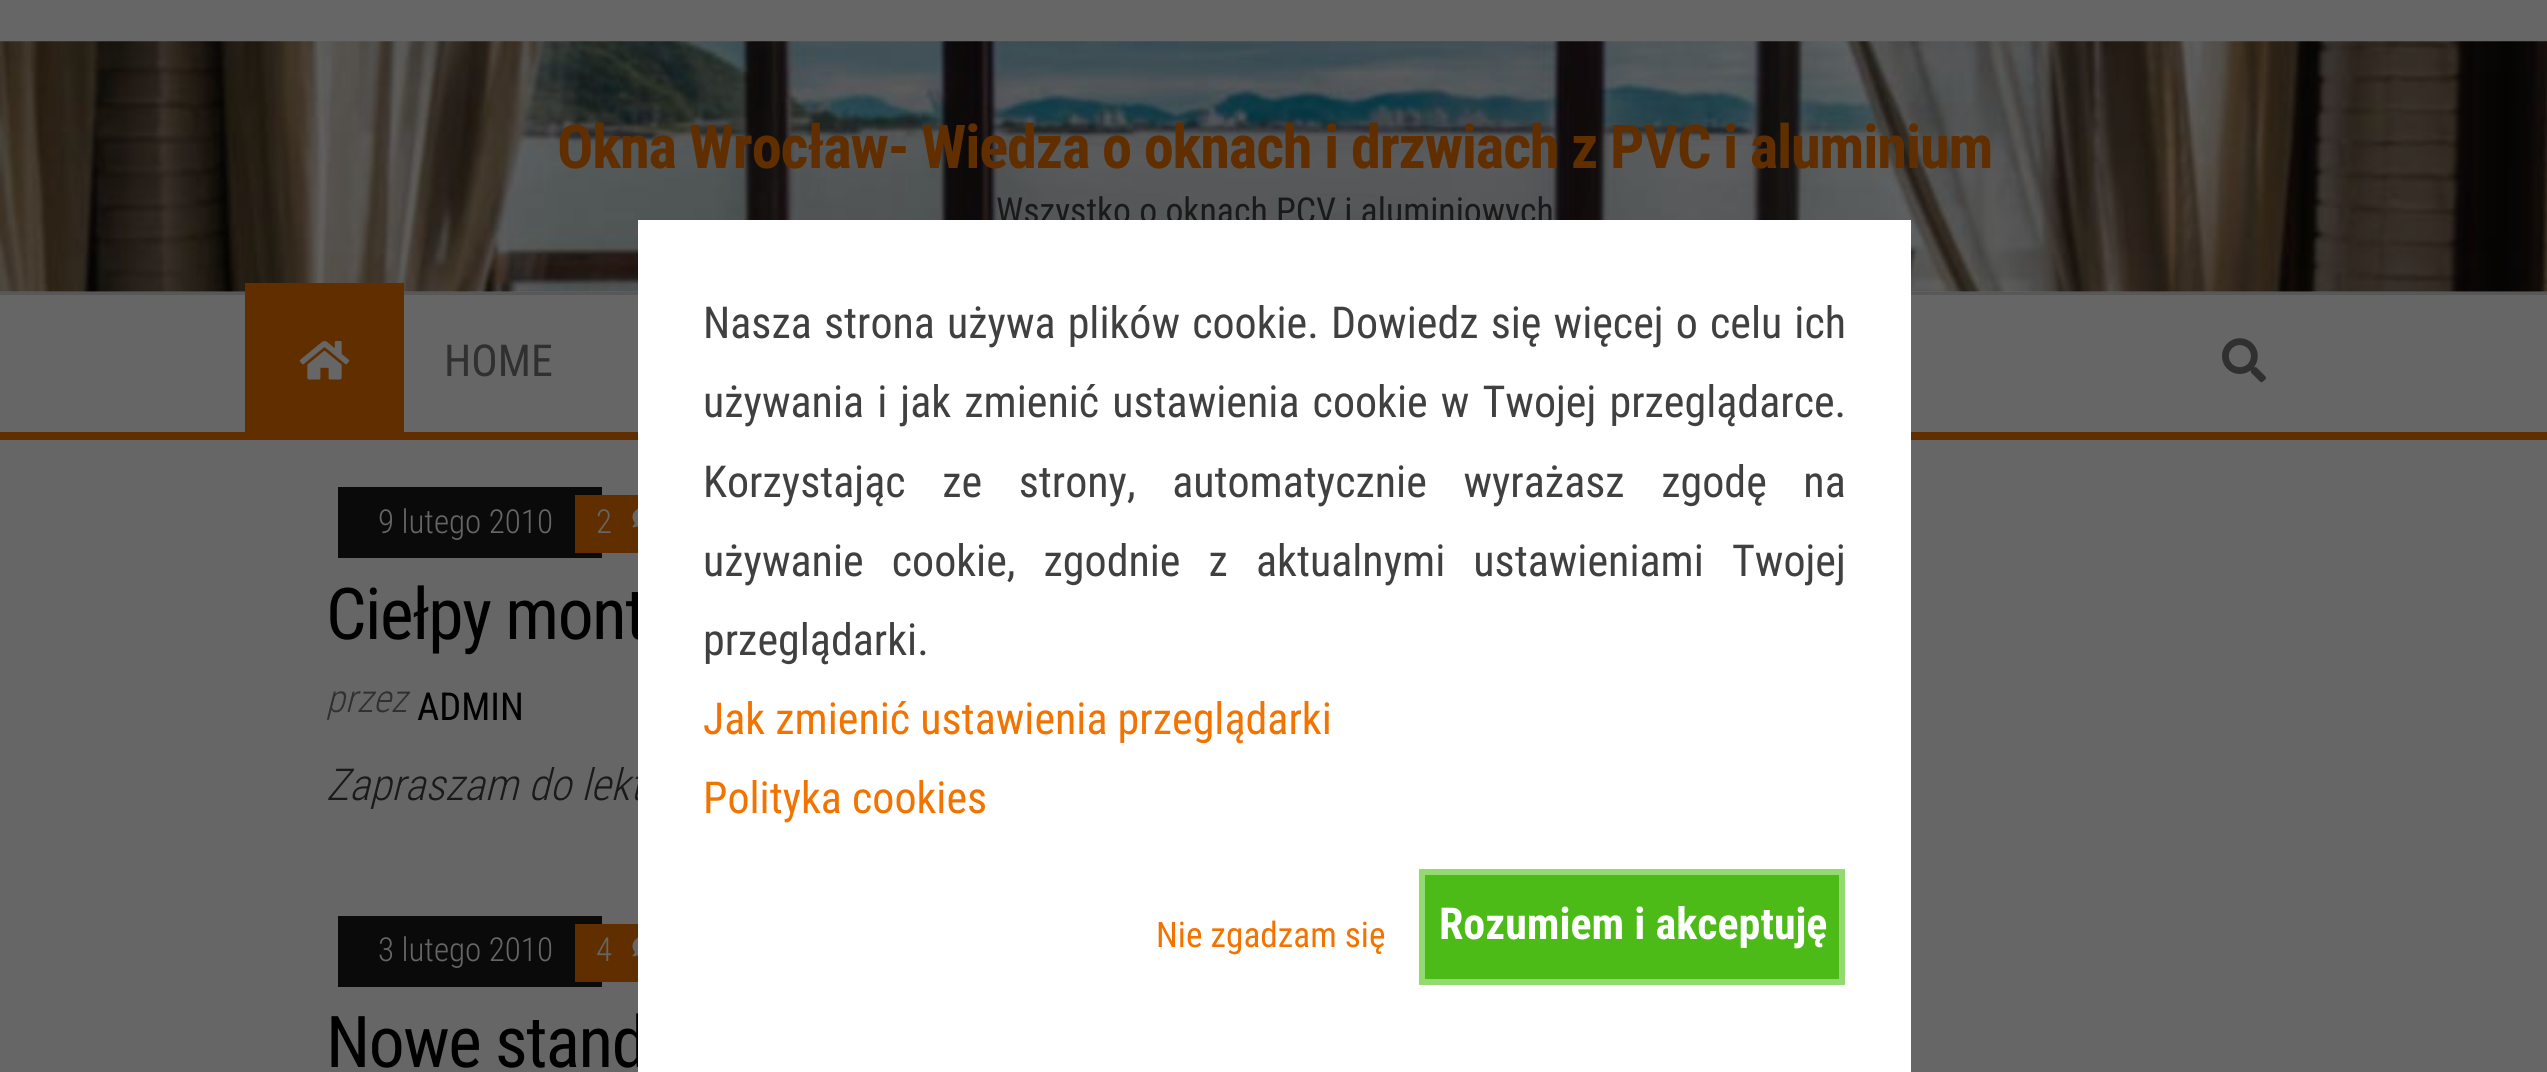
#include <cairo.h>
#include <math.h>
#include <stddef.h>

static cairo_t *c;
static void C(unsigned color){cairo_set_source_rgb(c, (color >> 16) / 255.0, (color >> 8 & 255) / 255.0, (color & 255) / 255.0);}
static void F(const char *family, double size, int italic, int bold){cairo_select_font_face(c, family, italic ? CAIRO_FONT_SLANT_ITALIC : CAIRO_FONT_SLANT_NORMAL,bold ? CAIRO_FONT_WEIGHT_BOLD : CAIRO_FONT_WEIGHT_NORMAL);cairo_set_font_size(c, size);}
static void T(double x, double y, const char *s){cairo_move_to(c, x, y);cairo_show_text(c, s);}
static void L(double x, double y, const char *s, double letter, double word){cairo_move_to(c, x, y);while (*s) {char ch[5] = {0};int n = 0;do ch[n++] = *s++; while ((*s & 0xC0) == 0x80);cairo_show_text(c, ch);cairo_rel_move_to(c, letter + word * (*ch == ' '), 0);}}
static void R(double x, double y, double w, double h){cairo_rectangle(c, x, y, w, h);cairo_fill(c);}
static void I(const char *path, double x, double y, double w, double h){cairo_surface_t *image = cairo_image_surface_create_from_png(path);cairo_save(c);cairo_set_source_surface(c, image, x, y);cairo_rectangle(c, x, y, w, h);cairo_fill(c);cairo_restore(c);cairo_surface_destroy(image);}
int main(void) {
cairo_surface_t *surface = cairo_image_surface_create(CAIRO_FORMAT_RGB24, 2547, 1072);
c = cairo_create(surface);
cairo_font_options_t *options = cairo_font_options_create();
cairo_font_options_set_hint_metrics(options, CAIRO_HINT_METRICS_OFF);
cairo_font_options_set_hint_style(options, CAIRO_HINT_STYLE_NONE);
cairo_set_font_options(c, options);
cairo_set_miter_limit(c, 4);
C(0x666666);
cairo_paint(c);
I("1.png",0,41,2547,251);
F("Roboto Condensed",60.5,0,1);
C(0x612e00);
L(557,168,"Okna Wrocław- Wiedza o oknach i drzwiach z PVC i aluminium",-1.2,0);
F("Roboto Condensed",35.75,0,0);
C(0x1a1a1a);
T(996,223,"Wszystko o oknach PCV i aluminiowych");
C(0x585858);
R(0,292,2547,3);
C(0x612e00);
R(0,432,2547,8);
R(245,283,159,149);
I("2.png",299,341,51,39);
F("Roboto Condensed",44,0,0);
C(0x303030);
T(444,376,"HOME");
I("3.png",2222,338,44,45);
C(0x0a0a0a);
R(338,487,264,71);
F("Roboto Condensed Light",33,0,0);
C(0x666666);
T(378,533,"9 lutego 2010");
C(0x612e00);
R(575,495,63,58);
C(0x666666);
T(596,533,"2");
I("4.png",632,508,6,20);
F("Roboto Condensed",71.5,0,0);
C(0x000000);
L(326,639,"Ciełpy mont",-1.5,0);
F("Roboto Condensed Light",38.5,1,0);
C(0x303030);
T(326,712,"przez");
F("Roboto Condensed",38.5,0,0);
C(0x000000);
T(417,720,"ADMIN");
F("Roboto Condensed Light",44,1,0);
C(0x1a1a1a);
T(326,800,"Zapraszam do lekt");
C(0x0a0a0a);
R(338,916,264,71);
F("Roboto Condensed Light",33,0,0);
C(0x666666);
T(378,961,"3 lutego 2010");
C(0x612e00);
R(575,924,63,58);
C(0x666666);
T(596,961,"4");
I("4.png",632,937,6,20);
F("Roboto Condensed",71.5,0,0);
C(0x000000);
L(326,1067,"Nowe stand",-1.5,0);
C(0xffffff);
R(638,220,1273,852);
F("Roboto Condensed",44,0,0);
C(0x404040);
L(703,338,"Nasza strona używa plików cookie. Dowiedz się więcej o celu ich",0,2);
L(703,417,"używania i jak zmienić ustawienia cookie w Twojej przeglądarce.",0,3);
L(703,497,"Korzystając ze strony, automatycznie wyrażasz zgodę na",0,26.5);
L(703,576,"używanie cookie, zgodnie z aktualnymi ustawieniami Twojej",0,18);
T(703,655,"przeglądarki.");
C(0xf27300);
T(703,734,"Jak zmienić ustawienia przeglądarki");
T(703,813,"Polityka cookies");
F("Roboto Condensed",35.25,0,0);
T(1156,947,"Nie zgadzam się");
C(0x4cbb17);
cairo_rectangle(c,1422,872,420,110);
cairo_fill_preserve(c);
C(0x93db70);
cairo_set_line_width(c,6);
cairo_stroke(c);
F("Roboto Condensed",44,0,1);
C(0xffffff);
T(1439,939,"Rozumiem i akceptuję");
cairo_surface_write_to_png(surface, "o.png");
cairo_font_options_destroy(options);
cairo_destroy(c);
cairo_surface_destroy(surface);
return 0;
}
